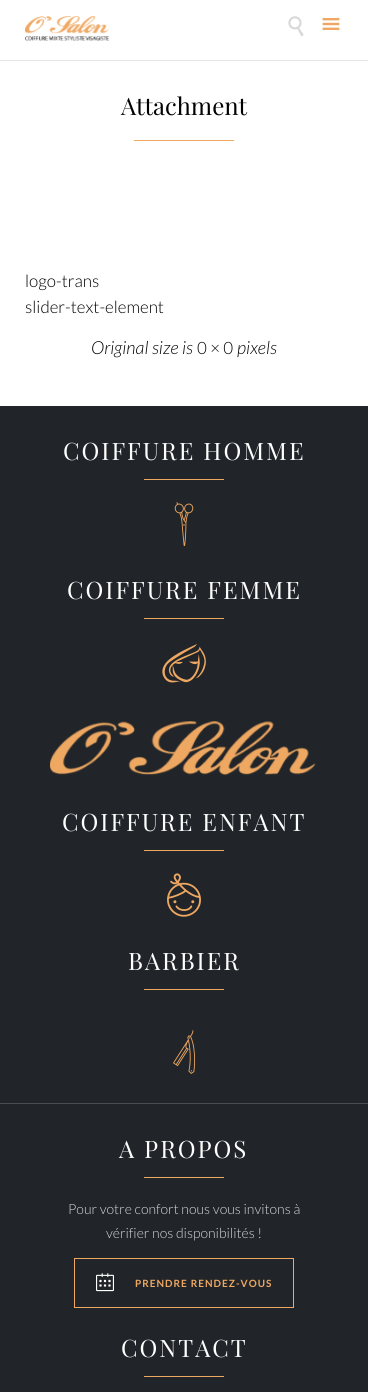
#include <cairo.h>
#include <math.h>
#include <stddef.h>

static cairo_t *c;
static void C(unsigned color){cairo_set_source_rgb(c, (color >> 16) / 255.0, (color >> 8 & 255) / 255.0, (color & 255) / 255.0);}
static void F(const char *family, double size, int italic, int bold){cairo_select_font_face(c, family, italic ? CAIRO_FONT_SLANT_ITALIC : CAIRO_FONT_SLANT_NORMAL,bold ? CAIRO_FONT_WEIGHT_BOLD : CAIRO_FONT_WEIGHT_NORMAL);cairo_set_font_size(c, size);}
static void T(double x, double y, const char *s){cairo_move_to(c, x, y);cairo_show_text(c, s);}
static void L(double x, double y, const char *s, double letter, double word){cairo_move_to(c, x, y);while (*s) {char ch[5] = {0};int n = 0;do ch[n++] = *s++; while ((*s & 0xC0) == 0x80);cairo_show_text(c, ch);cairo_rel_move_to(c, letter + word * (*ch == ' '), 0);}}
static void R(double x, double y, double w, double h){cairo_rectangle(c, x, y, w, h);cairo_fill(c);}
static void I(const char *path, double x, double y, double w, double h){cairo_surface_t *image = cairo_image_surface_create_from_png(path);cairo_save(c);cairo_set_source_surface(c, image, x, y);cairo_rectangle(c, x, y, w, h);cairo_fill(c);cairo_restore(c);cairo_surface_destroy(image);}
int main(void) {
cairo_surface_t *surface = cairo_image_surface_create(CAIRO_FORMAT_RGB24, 368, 1392);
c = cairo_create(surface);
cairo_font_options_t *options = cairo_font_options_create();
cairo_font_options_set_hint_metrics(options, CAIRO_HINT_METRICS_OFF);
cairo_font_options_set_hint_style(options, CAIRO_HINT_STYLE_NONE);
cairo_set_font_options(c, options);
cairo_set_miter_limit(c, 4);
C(0xffffff);
cairo_paint(c);
C(0xe6e6e6);
R(0,60,368,1);
I("1.png",25,16,85,25);
I("2.png",288,16,16,21);
I("3.png",322,18,18,12);
F("Playfair Display",24,0,0);
C(0x000000);
T(121,115,"Attachment");
C(0xefa862);
R(134,140,100,1);
F("Lato Light",17,0,0);
C(0x000000);
T(25,287,"logo-trans");
T(25,313,"slider-text-element");
F("Lato Light",18,1,0);
T(91,354,"Original size is");
F("Lato Light",17,0,0);
T(197,354,"0 × 0");
F("Lato Light",18,1,0);
T(237,354,"pixels");
C(0x212529);
R(0,406,368,986);
C(0x4a4d50);
R(0,1103,368,1);
F("Playfair Display",24,0,0);
C(0xffffff);
L(63,460,"COIFFURE HOMME",2,0);
C(0xefa862);
R(144,479,80,1);
I("4.png",174,502,20,44);
C(0xffffff);
L(67,599,"COIFFURE FEMME",2,0);
C(0xefa862);
R(144,618,80,1);
I("5.png",162,644,44,39);
I("6.png",50,721,266,55);
C(0xffffff);
L(62,831,"COIFFURE ENFANT",2,0);
C(0xefa862);
R(144,850,80,1);
I("7.png",167,873,34,44);
C(0xffffff);
L(128,970,"BARBIER",2,0);
C(0xefa862);
R(144,989,80,1);
I("8.png",173,1030,23,44);
C(0xffffff);
L(119,1158,"A PROPOS",2,0);
C(0xefa862);
R(144,1177,80,1);
F("Lato Light",14,0,0);
C(0xd8d8d8);
T(68,1214,"Pour votre confort nous vous invitons à");
T(106,1238,"vérifier nos disponibilités !");
cairo_rectangle(c,74.5,1258.5,219,49);
C(0xefa862);
cairo_set_line_width(c,1);
cairo_stroke(c);
I("9.png",96,1273,18,19);
F("Lato",10,0,1);
L(135,1287,"PRENDRE RENDEZ-VOUS",1,0);
F("Playfair Display",24,0,0);
C(0xffffff);
L(121,1357,"CONTACT",2,0);
C(0xefa862);
R(144,1376,80,1);
cairo_surface_write_to_png(surface, "o.png");
cairo_font_options_destroy(options);
cairo_destroy(c);
cairo_surface_destroy(surface);
return 0;
}
